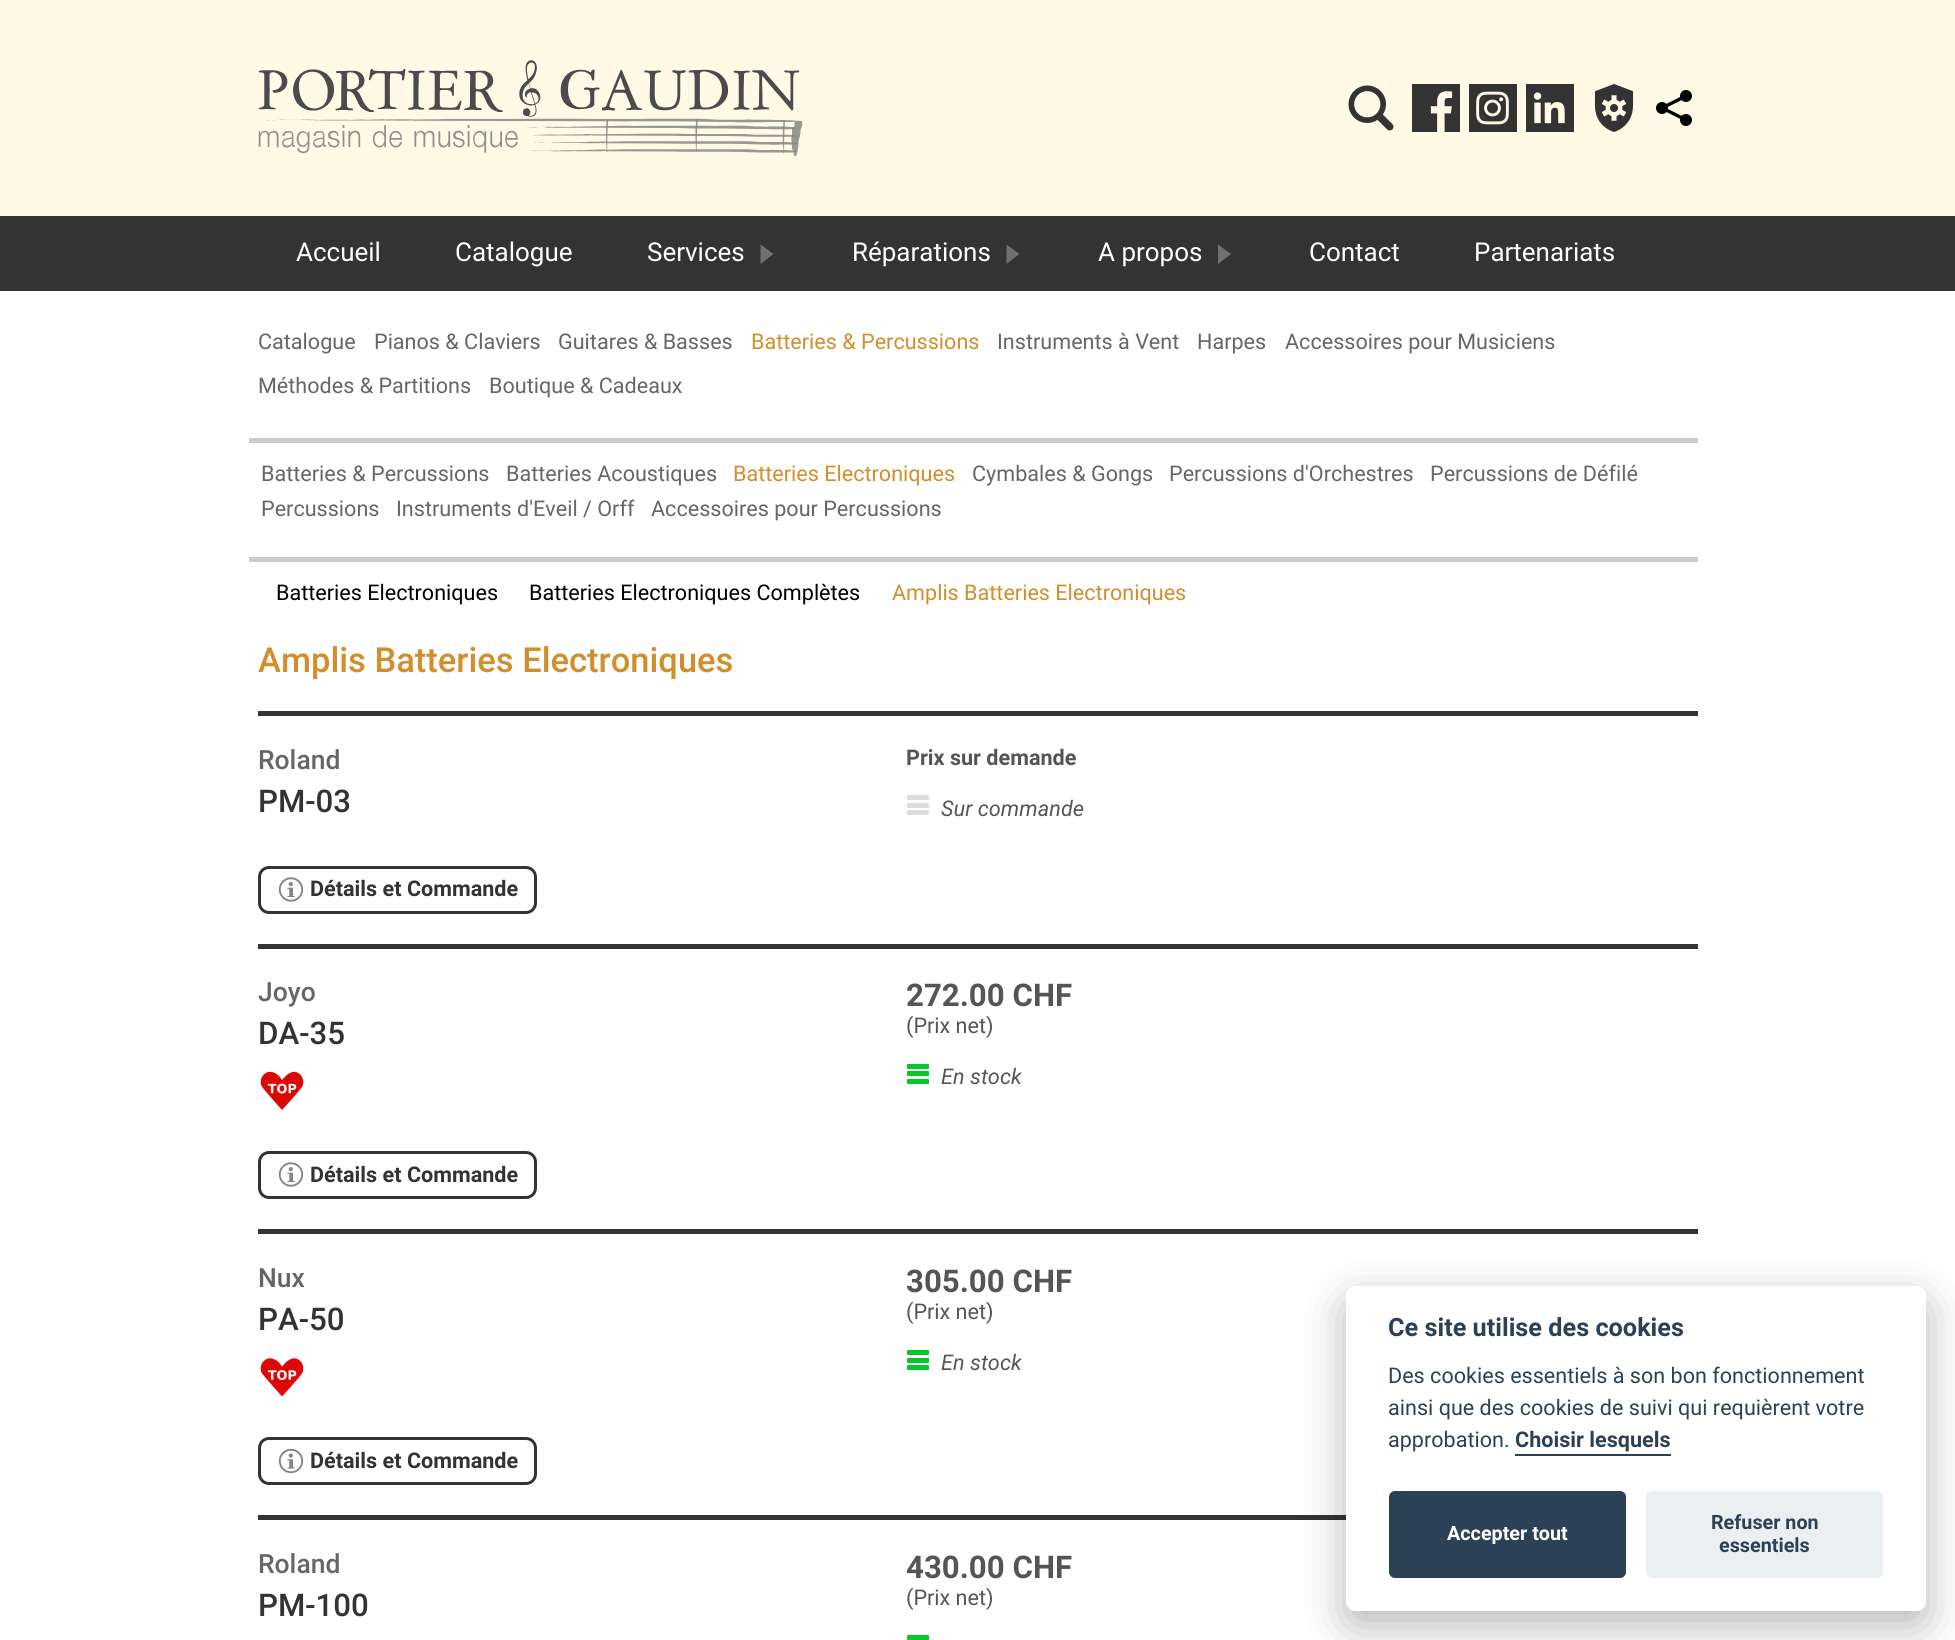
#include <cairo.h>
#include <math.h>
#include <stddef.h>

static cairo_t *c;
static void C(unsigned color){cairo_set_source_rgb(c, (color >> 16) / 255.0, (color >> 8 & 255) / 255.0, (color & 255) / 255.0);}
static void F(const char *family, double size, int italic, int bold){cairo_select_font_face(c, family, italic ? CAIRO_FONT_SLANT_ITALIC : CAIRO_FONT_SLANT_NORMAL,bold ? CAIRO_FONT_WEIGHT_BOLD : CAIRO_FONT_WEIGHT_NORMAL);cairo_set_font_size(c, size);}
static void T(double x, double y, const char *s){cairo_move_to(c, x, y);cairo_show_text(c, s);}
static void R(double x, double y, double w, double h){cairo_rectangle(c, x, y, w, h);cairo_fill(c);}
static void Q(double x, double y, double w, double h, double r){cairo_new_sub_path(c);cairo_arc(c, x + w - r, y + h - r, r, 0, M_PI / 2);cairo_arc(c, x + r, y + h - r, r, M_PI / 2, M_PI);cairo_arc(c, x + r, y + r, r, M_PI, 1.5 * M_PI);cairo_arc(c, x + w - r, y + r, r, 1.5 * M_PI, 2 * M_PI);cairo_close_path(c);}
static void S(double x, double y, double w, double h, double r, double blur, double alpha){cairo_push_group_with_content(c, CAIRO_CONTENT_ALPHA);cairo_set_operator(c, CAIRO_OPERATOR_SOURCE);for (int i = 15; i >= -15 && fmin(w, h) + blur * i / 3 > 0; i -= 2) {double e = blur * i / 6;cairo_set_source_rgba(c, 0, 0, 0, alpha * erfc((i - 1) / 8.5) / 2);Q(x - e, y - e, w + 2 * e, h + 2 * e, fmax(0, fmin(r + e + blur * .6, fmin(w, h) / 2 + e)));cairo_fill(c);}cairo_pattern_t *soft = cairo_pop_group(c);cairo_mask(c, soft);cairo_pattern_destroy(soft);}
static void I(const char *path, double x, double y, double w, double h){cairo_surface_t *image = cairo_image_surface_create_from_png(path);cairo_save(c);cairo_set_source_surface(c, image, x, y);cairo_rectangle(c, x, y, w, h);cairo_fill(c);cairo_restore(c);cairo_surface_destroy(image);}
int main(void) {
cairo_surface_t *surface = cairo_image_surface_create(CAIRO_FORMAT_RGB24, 1955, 1640);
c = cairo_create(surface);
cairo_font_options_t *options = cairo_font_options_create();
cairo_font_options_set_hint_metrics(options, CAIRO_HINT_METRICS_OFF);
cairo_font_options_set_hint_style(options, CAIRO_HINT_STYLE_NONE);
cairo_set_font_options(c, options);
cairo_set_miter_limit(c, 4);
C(0x333333);
cairo_paint(c);
C(0xfff9e5);
R(0,0,1955,216);
I("1.png",258,60,545,96);
I("2.png",1348,85,46,46);
C(0x333333);
R(1412,84,48,48);
I("3.png",1430,91,23,41);
R(1469,84,48,48);
I("4.png",1476,91,33,34);
R(1526,84,48,48);
I("5.png",1533,92,32,32);
I("6.png",1594,84,40,48);
I("7.png",1656,90,36,36);
F("Roboto",26,0,0);
C(0xffffff);
T(296,261,"Accueil");
T(455,261,"Catalogue");
T(647,261,"Services");
C(0x707070);
cairo_new_path(c);
cairo_move_to(c,773.5,254);
cairo_line_to(c,760.5,244.5);
cairo_line_to(c,760.5,264);
cairo_close_path(c);
cairo_fill(c);
C(0xffffff);
T(852,261,"Réparations");
C(0x707070);
cairo_new_path(c);
cairo_move_to(c,1019.5,254);
cairo_line_to(c,1006.5,244.5);
cairo_line_to(c,1006.5,264);
cairo_close_path(c);
cairo_fill(c);
C(0xffffff);
T(1098,261,"A propos");
C(0x707070);
cairo_new_path(c);
cairo_move_to(c,1231,254);
cairo_line_to(c,1218,244.5);
cairo_line_to(c,1218,264);
cairo_close_path(c);
cairo_fill(c);
C(0xffffff);
T(1309,261,"Contact");
T(1474,261,"Partenariats");
R(0,291,1955,1349);
F("Roboto",21.6,0,0);
C(0x666666);
T(258,349,"Catalogue");
T(374,349,"Pianos & Claviers");
T(558,349,"Guitares & Basses");
C(0xd18e2a);
T(751,349,"Batteries & Percussions");
C(0x666666);
T(997,349,"Instruments à Vent");
T(1197,349,"Harpes");
T(1285,349,"Accessoires pour Musiciens");
T(258,393,"Méthodes & Partitions");
T(489,393,"Boutique & Cadeaux");
C(0xcccccc);
R(249,438,1449,5);
C(0x666666);
T(261,481,"Batteries & Percussions");
T(506,481,"Batteries Acoustiques");
C(0xd18e2a);
T(733,481,"Batteries Electroniques");
C(0x666666);
T(972,481,"Cymbales & Gongs");
T(1169,481,"Percussions d'Orchestres");
T(1430,481,"Percussions de Défilé");
T(261,516,"Percussions");
T(396,516,"Instruments d'Eveil / Orff");
T(651,516,"Accessoires pour Percussions");
C(0xcccccc);
R(249,557,1449,5);
C(0x000000);
T(276,600,"Batteries Electroniques");
T(529,600,"Batteries Electroniques Complètes");
C(0xd18e2a);
T(892,600,"Amplis Batteries Electroniques");
F("Roboto Medium",34.5,0,0);
T(258,672,"Amplis Batteries Electroniques");
C(0x333333);
R(258,711,1440,5);
F("Roboto Medium",26.5,0,0);
C(0x666666);
T(258,769,"Roland");
F("Roboto Medium",31.25,0,0);
C(0x333333);
T(258,812,"PM-03");
F("Roboto",21.6,0,1);
C(0x555555);
T(906,765,"Prix sur demande");
C(0xdddddd);
Q(907,810,22,5,1);
cairo_fill(c);
Q(907,803,22,5,1);
cairo_fill(c);
Q(907,795,22,5,1);
cairo_fill(c);
F("Roboto",21.6,1,0);
C(0x555555);
T(941,816,"Sur commande");
Q(259.5,867.5,276,45,9.5);
C(0x333333);
cairo_set_line_width(c,3);
cairo_stroke(c);
I("8.png",278,877,26,25);
F("Roboto",21.6,0,1);
T(310,896,"Détails et Commande");
R(258,944,1440,5);
F("Roboto Medium",26.5,0,0);
C(0x666666);
T(258,1001,"Joyo");
F("Roboto Medium",31.25,0,0);
C(0x333333);
T(258,1044,"DA-35");
I("9.png",260,1071,44,39);
F("Roboto",31.25,0,1);
C(0x555555);
T(906,1006,"272.00 CHF");
F("Roboto",21.6,0,0);
T(906,1033,"(Prix net)");
C(0x06c929);
Q(907,1079,22,5,1);
cairo_fill(c);
Q(907,1071,22,5,1);
cairo_fill(c);
Q(907,1064,22,5,1);
cairo_fill(c);
F("Roboto",21.6,1,0);
C(0x555555);
T(941,1084,"En stock");
Q(259.5,1152.5,276,45,9.5);
C(0x333333);
cairo_stroke(c);
I("8.png",278,1162,26,25);
F("Roboto",21.6,0,1);
T(310,1182,"Détails et Commande");
R(258,1229,1440,5);
F("Roboto Medium",26.5,0,0);
C(0x666666);
T(258,1287,"Nux");
F("Roboto Medium",31.25,0,0);
C(0x333333);
T(258,1330,"PA-50");
I("10.png",260,1358,44,39);
F("Roboto",31.25,0,1);
C(0x555555);
T(906,1292,"305.00 CHF");
F("Roboto",21.6,0,0);
T(906,1319,"(Prix net)");
C(0x06c929);
Q(907,1365,22,5,1);
cairo_fill(c);
Q(907,1358,22,5,1);
cairo_fill(c);
Q(907,1350,22,5,1);
cairo_fill(c);
F("Roboto",21.6,1,0);
C(0x555555);
T(941,1370,"En stock");
Q(259.5,1438.5,276,45,9.5);
C(0x333333);
cairo_stroke(c);
I("11.png",278,1448,26,26);
F("Roboto",21.6,0,1);
T(310,1468,"Détails et Commande");
R(258,1515,1088,5);
F("Roboto Medium",26.5,0,0);
C(0x666666);
T(258,1573,"Roland");
F("Roboto Medium",31.25,0,0);
C(0x333333);
T(258,1616,"PM-100");
F("Roboto",31.25,0,1);
C(0x555555);
T(906,1578,"430.00 CHF");
F("Roboto",21.6,0,0);
T(906,1605,"(Prix net)");
C(0x06c929);
Q(907,1635,22,5,1);
cairo_fill(c);
C(0x020203);
S(1346,1301,580,325,9,22.5,.28);
C(0xffffff);
Q(1346,1286,580,325,9);
cairo_fill(c);
F("Roboto",25.25,0,1);
C(0x2d4156);
T(1388,1336,"Ce site utilise des cookies");
F("Roboto",21.6,0,0);
T(1388,1383,"Des cookies essentiels à son bon fonctionnement");
T(1388,1415,"ainsi que des cookies de suivi qui requièrent votre");
T(1388,1447,"approbation.");
F("Roboto",21.6,0,1);
T(1515,1447,"Choisir lesquels");
R(1515,1454,156,2);
Q(1389,1491,237,87,6);
cairo_fill(c);
F("Roboto",19.75,0,1);
C(0xffffff);
T(1447,1540,"Accepter tout");
C(0xeaeff2);
Q(1646,1491,237,87,6);
cairo_fill(c);
C(0x2d4156);
T(1711,1529,"Refuser non");
T(1719,1552,"essentiels");
cairo_surface_write_to_png(surface, "o.png");
cairo_font_options_destroy(options);
cairo_destroy(c);
cairo_surface_destroy(surface);
return 0;
}
